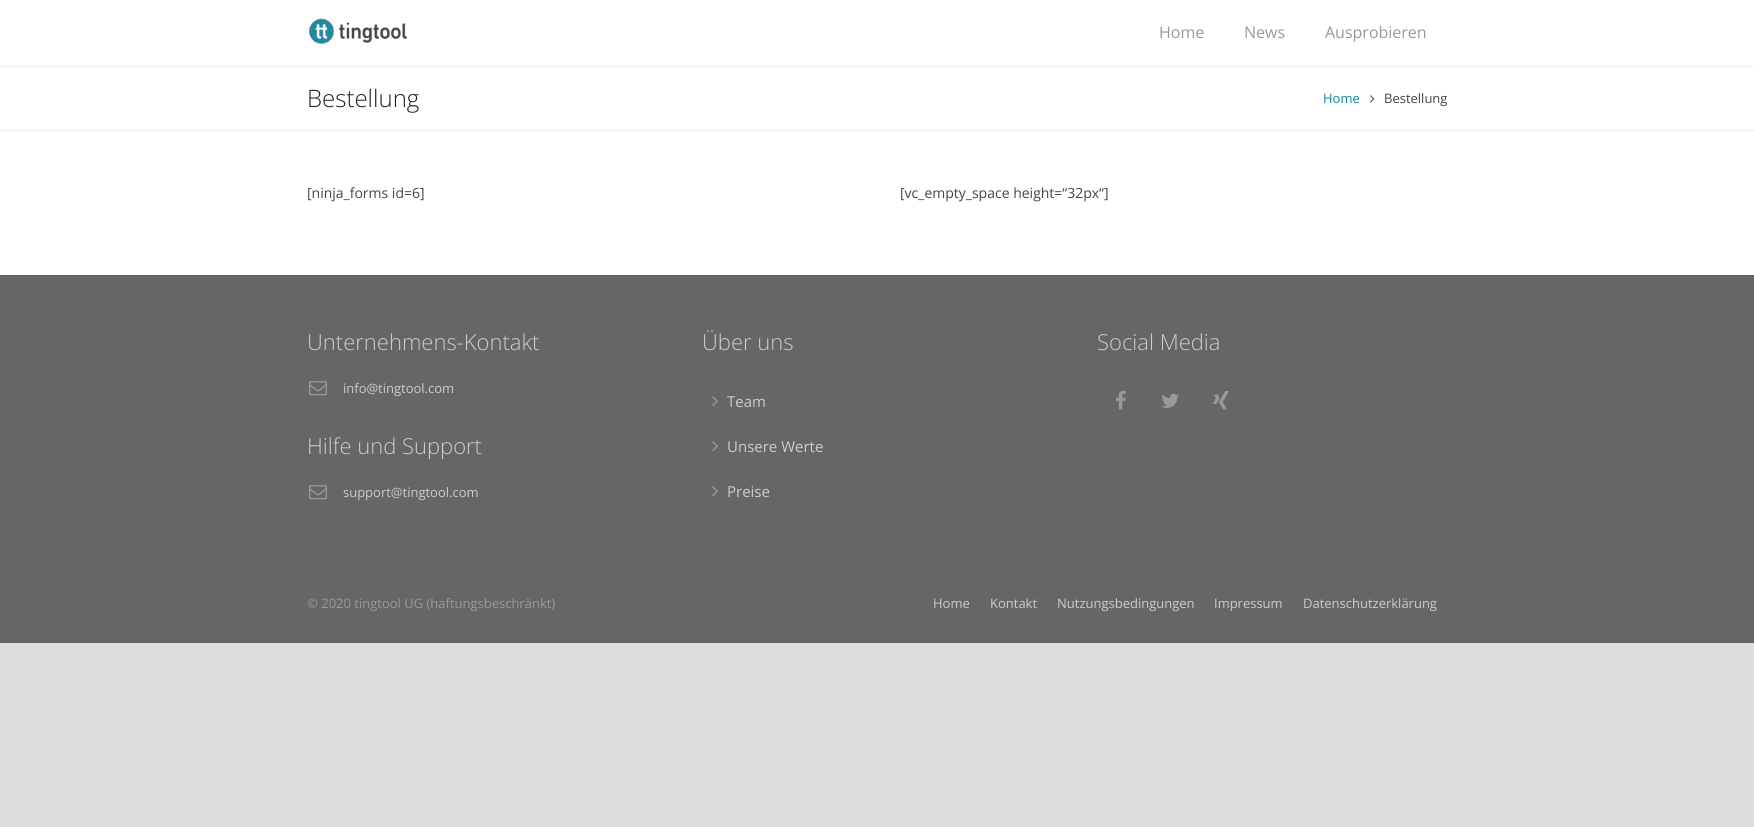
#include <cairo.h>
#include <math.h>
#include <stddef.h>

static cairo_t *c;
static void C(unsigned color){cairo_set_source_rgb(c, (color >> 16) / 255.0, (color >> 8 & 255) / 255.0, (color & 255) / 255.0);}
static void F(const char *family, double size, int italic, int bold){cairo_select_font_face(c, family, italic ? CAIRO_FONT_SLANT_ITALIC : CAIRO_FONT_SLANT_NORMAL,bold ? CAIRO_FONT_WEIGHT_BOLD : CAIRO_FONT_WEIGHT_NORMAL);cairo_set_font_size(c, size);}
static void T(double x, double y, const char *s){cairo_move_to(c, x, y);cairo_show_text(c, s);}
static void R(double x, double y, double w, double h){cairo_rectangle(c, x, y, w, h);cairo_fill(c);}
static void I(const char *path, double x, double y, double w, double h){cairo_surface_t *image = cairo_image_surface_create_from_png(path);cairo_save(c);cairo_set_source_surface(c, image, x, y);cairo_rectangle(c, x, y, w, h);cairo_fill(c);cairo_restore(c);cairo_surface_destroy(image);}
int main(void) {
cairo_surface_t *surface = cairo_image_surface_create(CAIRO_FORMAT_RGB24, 1754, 827);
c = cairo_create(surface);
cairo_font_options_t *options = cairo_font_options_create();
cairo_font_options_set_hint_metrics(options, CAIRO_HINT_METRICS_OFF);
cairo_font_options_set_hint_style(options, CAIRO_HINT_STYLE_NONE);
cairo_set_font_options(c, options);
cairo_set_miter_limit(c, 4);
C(0xdddddd);
cairo_paint(c);
C(0xffffff);
R(0,0,1754,275);
C(0xebebeb);
R(1,66,1752,1);
I("1.png",308,18,99,26);
F("Open Sans",16,0,0);
C(0x999999);
T(1159,38,"Home");
T(1244,38,"News");
T(1325,38,"Ausprobieren");
C(0x5e5e5e);
R(0,275,1754,1);
cairo_save(c);
cairo_rectangle(c,0,0,1754,131);
cairo_clip(c);
C(0xebebeb);
cairo_set_fill_rule(c,CAIRO_FILL_RULE_EVEN_ODD);
cairo_new_path(c);
cairo_move_to(c,-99,-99);
cairo_line_to(c,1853,-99);
cairo_line_to(c,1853,230);
cairo_line_to(c,-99,230);
cairo_close_path(c);
cairo_move_to(c,0,-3);
cairo_line_to(c,1754,-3);
cairo_line_to(c,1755,-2);
cairo_line_to(c,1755,129);
cairo_line_to(c,1754,130);
cairo_line_to(c,0,130);
cairo_line_to(c,-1,129);
cairo_line_to(c,-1,-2);
cairo_close_path(c);
cairo_fill(c);
cairo_restore(c);
F("Open Sans Light",24,0,0);
C(0x222222);
T(307,107,"Bestellung");
F("Open Sans",13,0,0);
C(0x0c869e);
T(1323,103,"Home");
I("2.png",1370,95,5,8);
C(0x444444);
T(1384,103,"Bestellung");
F("Open Sans",14,0,0);
T(307,198,"[ninja_forms id=6]");
T(900,198,"[vc_empty_space height=“32px“]");
C(0x666666);
R(0,276,1754,367);
F("Open Sans Light",22,0,0);
C(0xcccccc);
T(307,350,"Unternehmens-Kontakt");
I("3.png",309,381,18,15);
F("Open Sans",13,0,0);
T(343,393,"info@tingtool.com");
F("Open Sans Light",22,0,0);
T(307,454,"Hilfe und Support");
I("3.png",309,485,18,15);
F("Open Sans",13,0,0);
T(343,497,"support@tingtool.com");
F("Open Sans Light",22,0,0);
T(702,350,"Über uns");
I("4.png",712,396,6,10);
F("Open Sans",15,0,0);
T(727,407,"Team");
I("4.png",712,441,6,10);
T(727,452,"Unsere Werte");
I("4.png",712,486,6,10);
T(727,497,"Preise");
F("Open Sans Light",22,0,0);
T(1097,350,"Social Media");
I("5.png",1116,390,10,20);
I("6.png",1162,393,17,15);
I("7.png",1213,391,16,19);
F("Open Sans",13,0,0);
C(0x999999);
T(307,608,"© 2020 tingtool UG (haftungsbeschränkt)");
C(0xcccccc);
T(933,608,"Home");
T(990,608,"Kontakt");
T(1057,608,"Nutzungsbedingungen");
T(1214,608,"Impressum");
T(1303,608,"Datenschutzerklärung");
cairo_surface_write_to_png(surface, "o.png");
cairo_font_options_destroy(options);
cairo_destroy(c);
cairo_surface_destroy(surface);
return 0;
}
